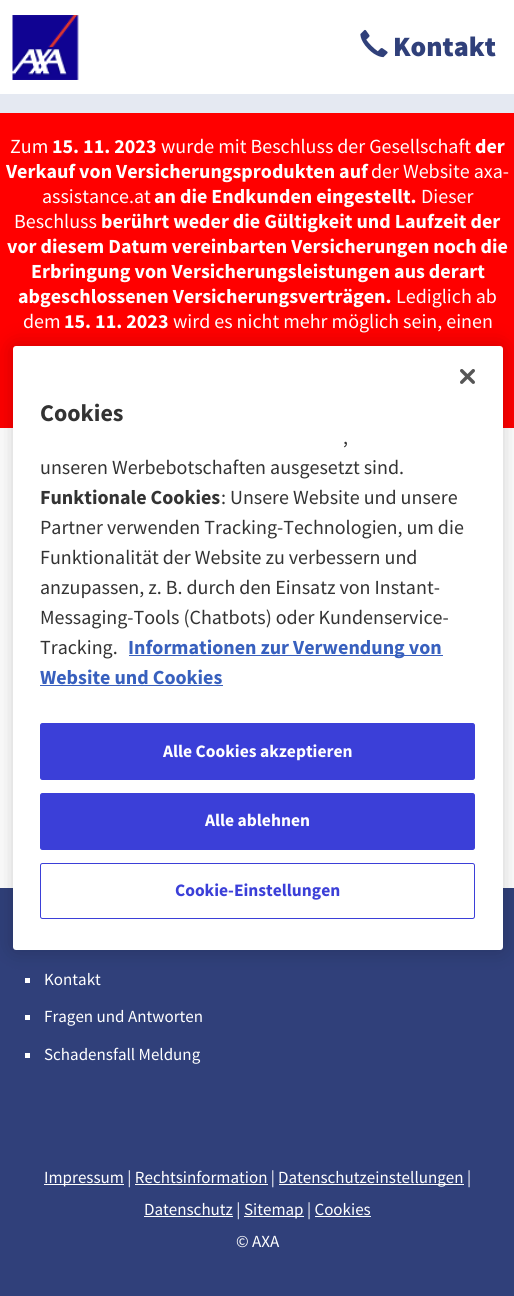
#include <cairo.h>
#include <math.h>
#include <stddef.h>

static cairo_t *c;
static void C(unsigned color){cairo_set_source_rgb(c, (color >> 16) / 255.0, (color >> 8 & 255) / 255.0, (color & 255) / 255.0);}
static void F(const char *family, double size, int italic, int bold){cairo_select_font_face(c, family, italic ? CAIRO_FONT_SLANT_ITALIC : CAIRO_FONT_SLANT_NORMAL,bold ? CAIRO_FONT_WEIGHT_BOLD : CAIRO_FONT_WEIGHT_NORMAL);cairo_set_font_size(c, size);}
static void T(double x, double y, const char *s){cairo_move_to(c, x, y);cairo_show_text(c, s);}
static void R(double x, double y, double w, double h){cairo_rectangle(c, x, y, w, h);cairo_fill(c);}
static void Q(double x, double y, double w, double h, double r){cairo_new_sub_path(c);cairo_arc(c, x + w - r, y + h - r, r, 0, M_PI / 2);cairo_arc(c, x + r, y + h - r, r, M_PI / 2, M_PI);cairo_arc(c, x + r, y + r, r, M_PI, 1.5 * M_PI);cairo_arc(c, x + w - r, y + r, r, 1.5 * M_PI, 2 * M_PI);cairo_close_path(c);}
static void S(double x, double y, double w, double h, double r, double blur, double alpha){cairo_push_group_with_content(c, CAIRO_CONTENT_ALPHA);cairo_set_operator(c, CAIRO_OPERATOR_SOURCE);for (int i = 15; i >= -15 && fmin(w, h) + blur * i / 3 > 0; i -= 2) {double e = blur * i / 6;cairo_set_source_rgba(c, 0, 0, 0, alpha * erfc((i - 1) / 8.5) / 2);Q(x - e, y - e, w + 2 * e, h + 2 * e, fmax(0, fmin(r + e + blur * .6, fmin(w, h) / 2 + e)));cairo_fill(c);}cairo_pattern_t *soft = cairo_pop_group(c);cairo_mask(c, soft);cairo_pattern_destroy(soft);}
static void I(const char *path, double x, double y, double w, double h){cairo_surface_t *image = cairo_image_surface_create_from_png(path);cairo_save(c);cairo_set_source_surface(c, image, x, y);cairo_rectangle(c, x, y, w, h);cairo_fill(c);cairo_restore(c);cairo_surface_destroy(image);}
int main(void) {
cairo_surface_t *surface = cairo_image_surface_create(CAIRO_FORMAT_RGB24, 514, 1296);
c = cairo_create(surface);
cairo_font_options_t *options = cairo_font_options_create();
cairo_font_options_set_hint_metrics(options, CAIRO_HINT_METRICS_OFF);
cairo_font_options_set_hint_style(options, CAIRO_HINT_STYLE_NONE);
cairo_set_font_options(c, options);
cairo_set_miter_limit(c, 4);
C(0xffffff);
cairo_paint(c);
I("1.png",12,15,67,65);
I("2.png",360,29,28,29);
F("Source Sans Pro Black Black",28,0,0);
C(0x30407a);
T(393,56,"Kontakt");
C(0xe5e9f2);
R(0,94,514,19);
C(0xff0000);
R(0,113,514,315);
F("Source Sans Pro",20,0,0);
C(0xffffff);
T(10,153,"Zum");
F("Source Sans Pro",20,0,1);
T(52,153,"15. 11. 2023");
F("Source Sans Pro",20,0,0);
T(161,153,"wurde mit Beschluss der Gesellschaft");
F("Source Sans Pro",20,0,1);
T(475,153,"der");
T(6,178,"Verkauf von Versicherungsprodukten auf");
F("Source Sans Pro",20,0,0);
T(371,178,"der Website axa-");
T(42,203,"assistance.at");
F("Source Sans Pro",20,0,1);
T(154,203,"an die Endkunden eingestellt.");
F("Source Sans Pro",20,0,0);
T(421,203,"Dieser");
T(14,228,"Beschluss");
F("Source Sans Pro",20,0,1);
T(101,228,"berührt weder die Gültigkeit und Laufzeit der");
T(7,253,"vor diesem Datum vereinbarten Versicherungen noch die");
T(31,278,"Erbringung von Versicherungsleistungen aus derart");
T(18,303,"abgeschlossenen Versicherungsverträgen.");
F("Source Sans Pro",20,0,0);
T(396,303,"Lediglich ab");
T(23,328,"dem");
F("Source Sans Pro",20,0,1);
T(64,328,"15. 11. 2023");
F("Source Sans Pro",20,0,0);
T(173,328,"wird es nicht mehr möglich sein, einen");
C(0x30407a);
R(0,888,514,408);
C(0xffffff);
R(25,978,5,5);
F("Source Sans Pro",17,0,0);
T(44,985,"Kontakt");
R(25,1015,5,5);
T(44,1022,"Fragen und Antworten");
R(25,1053,5,5);
T(44,1060,"Schadensfall Meldung");
R(44,1184,80,1);
T(44,1183,"Impressum | Rechtsinformation |");
R(279,1184,185,1);
T(278,1183,"Datenschutzeinstellungen |");
R(135,1184,133,1);
R(144,1216,89,1);
T(144,1215,"Datenschutz |");
R(244,1216,60,1);
T(244,1215,"Sitemap | Cookies");
R(315,1216,56,1);
T(236,1247,"© AXA");
C(0x000000);
S(13,346,490,604,3,11,.2);
C(0xffffff);
Q(13,346,490,604,3);
cairo_fill(c);
I("3.png",460,369,15,15);
F("Source Sans Pro",24,0,1);
C(0x333333);
T(40,421,"Cookies");
F("Source Sans Pro",20,0,0);
T(343,444,",");
T(40,474,"unseren Werbebotschaften ausgesetzt sind.");
F("Source Sans Pro",20,0,1);
T(40,504,"Funktionale Cookies");
F("Source Sans Pro",20,0,0);
T(221,504,": Unsere Website und unsere");
T(40,534,"Partner verwenden Tracking-Technologien, um die");
T(40,564,"Funktionalität der Website zu verbessern und");
T(40,594,"anzupassen, z. B. durch den Einsatz von Instant-");
T(40,624,"Messaging-Tools (Chatbots) oder Kundenservice-");
T(40,654,"Tracking.");
C(0x3860be);
R(129,655,314,1);
F("Source Sans Pro",20,0,1);
T(128,654,"Informationen zur Verwendung von");
T(40,684,"Website und Cookies");
R(40,685,183,1);
C(0x3b3fd8);
Q(40.5,723.5,434,56,2);
cairo_fill_preserve(c);
cairo_set_line_width(c,1);
cairo_stroke(c);
F("Source Sans Pro",17.5,0,1);
C(0xffffff);
T(163,757,"Alle Cookies akzeptieren");
C(0x3b3fd8);
Q(40.5,793.5,434,56,2);
cairo_fill_preserve(c);
cairo_stroke(c);
C(0xffffff);
T(205,826,"Alle ablehnen");
Q(40.5,863.5,434,55,2);
C(0x3b3fd8);
cairo_stroke(c);
T(175,896,"Cookie-Einstellungen");
cairo_surface_write_to_png(surface, "o.png");
cairo_font_options_destroy(options);
cairo_destroy(c);
cairo_surface_destroy(surface);
return 0;
}
